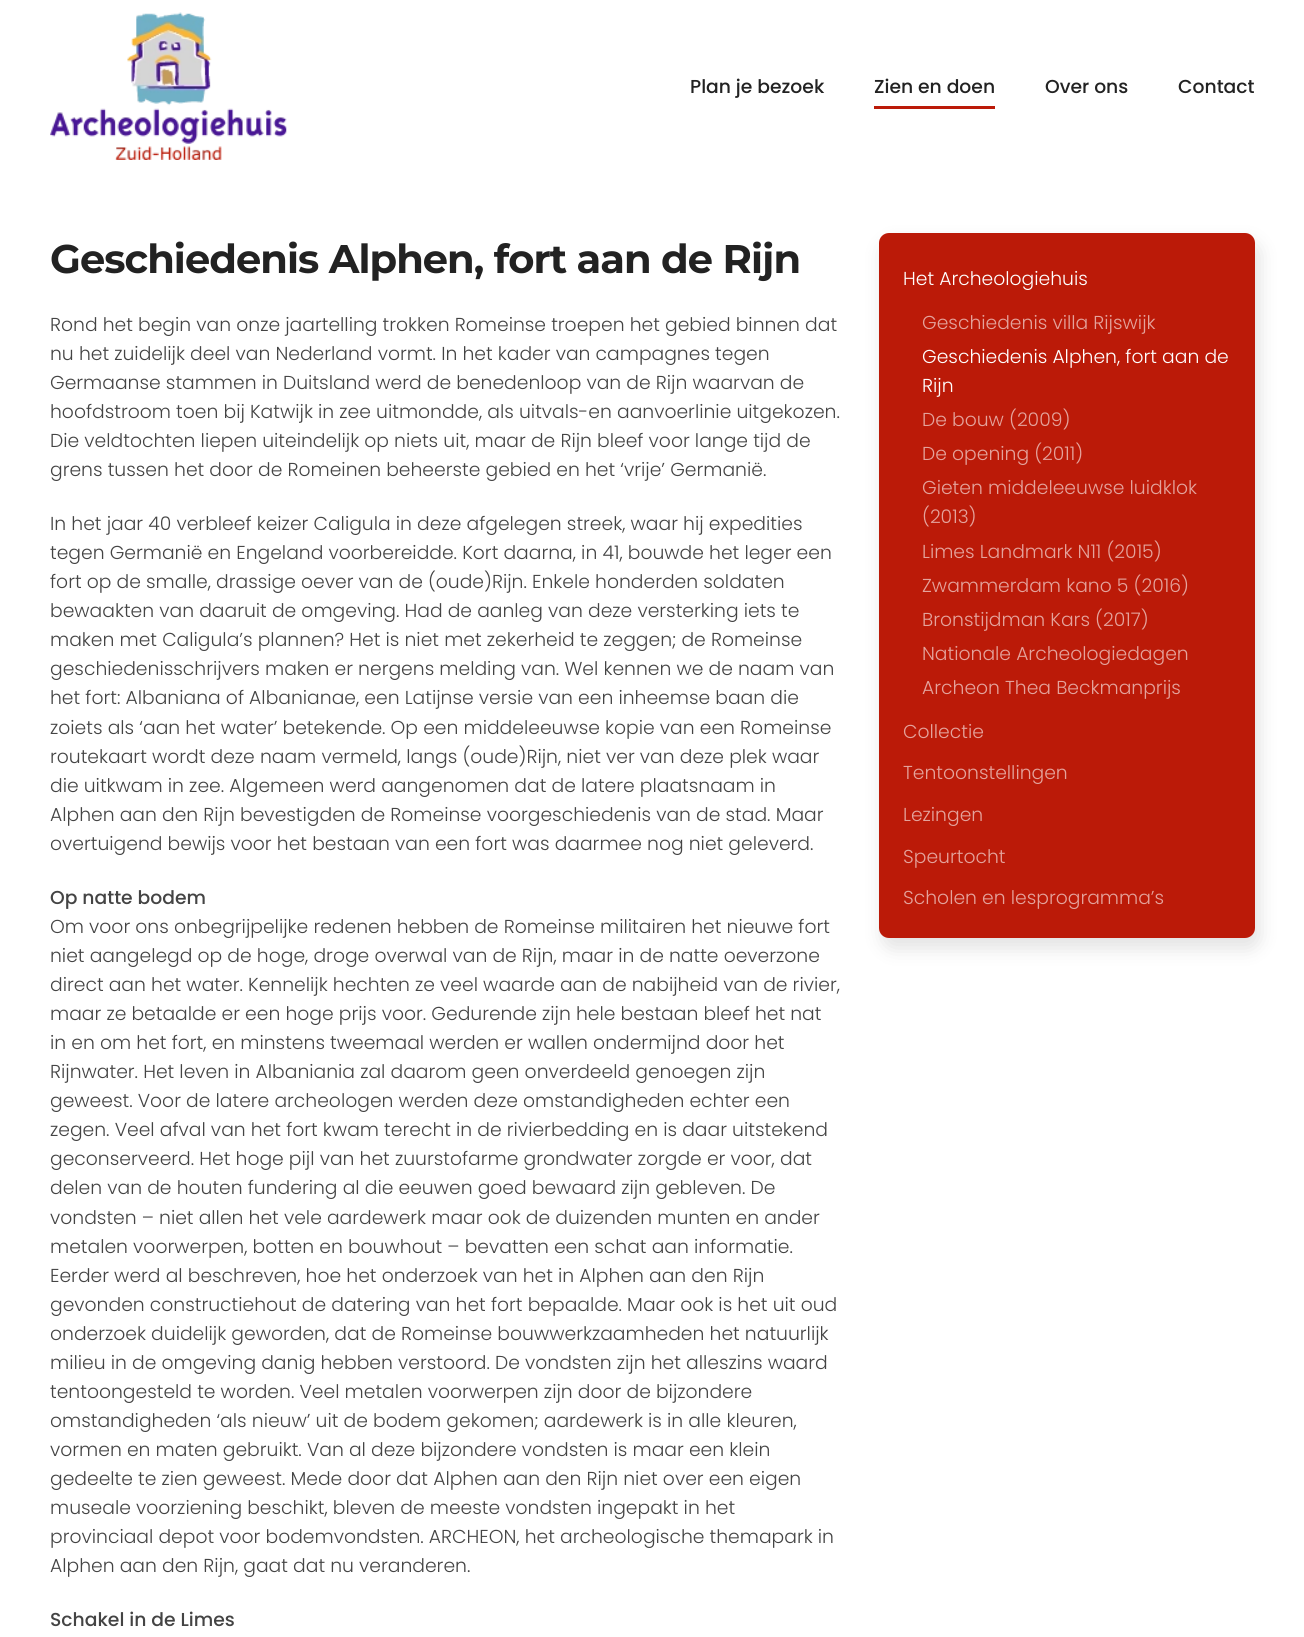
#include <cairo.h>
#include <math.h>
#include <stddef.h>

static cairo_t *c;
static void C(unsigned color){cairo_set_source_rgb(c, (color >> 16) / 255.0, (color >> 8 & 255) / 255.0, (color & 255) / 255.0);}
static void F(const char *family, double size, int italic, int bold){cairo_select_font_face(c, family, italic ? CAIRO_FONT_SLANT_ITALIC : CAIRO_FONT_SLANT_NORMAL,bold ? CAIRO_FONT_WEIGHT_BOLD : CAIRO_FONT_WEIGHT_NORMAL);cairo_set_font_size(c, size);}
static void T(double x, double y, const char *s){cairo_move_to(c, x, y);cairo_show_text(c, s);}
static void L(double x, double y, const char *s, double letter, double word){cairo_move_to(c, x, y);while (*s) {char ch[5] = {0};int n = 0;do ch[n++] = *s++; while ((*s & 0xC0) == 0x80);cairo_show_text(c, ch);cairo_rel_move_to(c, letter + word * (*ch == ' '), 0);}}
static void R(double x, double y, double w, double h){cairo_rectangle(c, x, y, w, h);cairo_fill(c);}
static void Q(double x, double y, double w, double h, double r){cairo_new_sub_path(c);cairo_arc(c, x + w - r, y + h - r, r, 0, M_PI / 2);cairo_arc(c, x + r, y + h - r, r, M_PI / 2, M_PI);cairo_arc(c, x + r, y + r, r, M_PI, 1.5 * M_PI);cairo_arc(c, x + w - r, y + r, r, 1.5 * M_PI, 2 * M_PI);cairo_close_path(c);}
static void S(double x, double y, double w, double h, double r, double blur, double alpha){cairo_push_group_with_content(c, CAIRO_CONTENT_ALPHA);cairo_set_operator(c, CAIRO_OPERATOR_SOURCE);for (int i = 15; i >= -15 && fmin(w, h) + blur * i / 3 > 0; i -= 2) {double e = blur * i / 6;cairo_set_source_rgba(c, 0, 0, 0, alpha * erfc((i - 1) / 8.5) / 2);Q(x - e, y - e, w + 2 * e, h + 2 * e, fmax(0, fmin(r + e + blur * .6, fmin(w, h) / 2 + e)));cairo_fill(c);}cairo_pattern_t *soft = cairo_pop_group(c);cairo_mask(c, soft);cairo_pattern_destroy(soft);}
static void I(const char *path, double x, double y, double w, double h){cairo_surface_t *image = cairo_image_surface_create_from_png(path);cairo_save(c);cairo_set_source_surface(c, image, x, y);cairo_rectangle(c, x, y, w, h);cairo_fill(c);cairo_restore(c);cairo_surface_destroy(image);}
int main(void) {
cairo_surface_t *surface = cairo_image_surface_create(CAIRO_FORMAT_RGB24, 1304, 1637);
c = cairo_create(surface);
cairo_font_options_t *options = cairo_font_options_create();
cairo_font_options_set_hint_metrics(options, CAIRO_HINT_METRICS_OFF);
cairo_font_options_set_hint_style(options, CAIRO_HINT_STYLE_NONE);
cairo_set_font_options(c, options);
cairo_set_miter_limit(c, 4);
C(0xffffff);
cairo_paint(c);
I("1.png",50,12,237,148);
F("Poppins Medium",18.75,0,0);
C(0x222222);
T(690,93,"Plan je bezoek");
T(874,93,"Zien en doen");
C(0xbb1a08);
R(874,106,121,3);
C(0x222222);
T(1045,93,"Over ons");
T(1178,93,"Contact");
F("Montserrat Thin",40,0,0);
L(50,273,"Geschiedenis Alphen, fort aan de Rijn",-.95,0);
F("Poppins Light",18.75,0,0);
C(0x444444);
T(50,331,"Rond het begin van onze jaartelling trokken Romeinse troepen het gebied binnen dat");
T(50,360,"nu het zuidelijk deel van Nederland vormt. In het kader van campagnes tegen");
T(50,389,"Germaanse stammen in Duitsland werd de benedenloop van de Rijn waarvan de");
T(50,418,"hoofdstroom toen bij Katwijk in zee uitmondde, als uitvals-en aanvoerlinie uitgekozen.");
T(50,447,"Die veldtochten liepen uiteindelijk op niets uit, maar de Rijn bleef voor lange tijd de");
T(50,476,"grens tussen het door de Romeinen beheerste gebied en het ‘vrije’ Germanië.");
T(50,530,"In het jaar 40 verbleef keizer Caligula in deze afgelegen streek, waar hij expedities");
T(50,559,"tegen Germanië en Engeland voorbereidde. Kort daarna, in 41, bouwde het leger een");
T(50,588,"fort op de smalle, drassige oever van de (oude)Rijn. Enkele honderden soldaten");
T(50,617,"bewaakten van daaruit de omgeving. Had de aanleg van deze versterking iets te");
T(50,646,"maken met Caligula’s plannen? Het is niet met zekerheid te zeggen; de Romeinse");
T(50,675,"geschiedenisschrijvers maken er nergens melding van. Wel kennen we de naam van");
T(50,704,"het fort: Albaniana of Albanianae, een Latijnse versie van een inheemse baan die");
T(50,734,"zoiets als ‘aan het water’ betekende. Op een middeleeuwse kopie van een Romeinse");
T(50,763,"routekaart wordt deze naam vermeld, langs (oude)Rijn, niet ver van deze plek waar");
T(50,792,"die uitkwam in zee. Algemeen werd aangenomen dat de latere plaatsnaam in");
T(50,821,"Alphen aan den Rijn bevestigden de Romeinse voorgeschiedenis van de stad. Maar");
T(50,850,"overtuigend bewijs voor het bestaan van een fort was daarmee nog niet geleverd.");
F("Poppins Medium",18.75,0,0);
T(50,904,"Op natte bodem");
F("Poppins Light",18.75,0,0);
T(50,933,"Om voor ons onbegrijpelijke redenen hebben de Romeinse militairen het nieuwe fort");
T(50,962,"niet aangelegd op de hoge, droge overwal van de Rijn, maar in de natte oeverzone");
T(50,991,"direct aan het water. Kennelijk hechten ze veel waarde aan de nabijheid van de rivier,");
T(50,1020,"maar ze betaalde er een hoge prijs voor. Gedurende zijn hele bestaan bleef het nat");
T(50,1049,"in en om het fort, en minstens tweemaal werden er wallen ondermijnd door het");
T(50,1078,"Rijnwater. Het leven in Albaniania zal daarom geen onverdeeld genoegen zijn");
T(50,1107,"geweest. Voor de latere archeologen werden deze omstandigheden echter een");
T(50,1136,"zegen. Veel afval van het fort kwam terecht in de rivierbedding en is daar uitstekend");
T(50,1165,"geconserveerd. Het hoge pijl van het zuurstofarme grondwater zorgde er voor, dat");
T(50,1194,"delen van de houten fundering al die eeuwen goed bewaard zijn gebleven. De");
T(50,1224,"vondsten – niet allen het vele aardewerk maar ook de duizenden munten en ander");
T(50,1253,"metalen voorwerpen, botten en bouwhout – bevatten een schat aan informatie.");
T(50,1282,"Eerder werd al beschreven, hoe het onderzoek van het in Alphen aan den Rijn");
T(50,1311,"gevonden constructiehout de datering van het fort bepaalde. Maar ook is het uit oud");
T(50,1340,"onderzoek duidelijk geworden, dat de Romeinse bouwwerkzaamheden het natuurlijk");
T(50,1369,"milieu in de omgeving danig hebben verstoord. De vondsten zijn het alleszins waard");
T(50,1398,"tentoongesteld te worden. Veel metalen voorwerpen zijn door de bijzondere");
T(50,1427,"omstandigheden ‘als nieuw’ uit de bodem gekomen; aardewerk is in alle kleuren,");
T(50,1456,"vormen en maten gebruikt. Van al deze bijzondere vondsten is maar een klein");
T(50,1485,"gedeelte te zien geweest. Mede door dat Alphen aan den Rijn niet over een eigen");
T(50,1514,"museale voorziening beschikt, bleven de meeste vondsten ingepakt in het");
T(50,1543,"provinciaal depot voor bodemvondsten. ARCHEON, het archeologische themapark in");
T(50,1572,"Alphen aan den Rijn, gaat dat nu veranderen.");
F("Poppins Medium",18.75,0,0);
T(50,1626,"Schakel in de Limes");
C(0x000000);
S(883,243,376,705,10,10,.12);
C(0xbb1a08);
Q(879,233,376,705,10);
cairo_fill(c);
F("Poppins Light",18.75,0,0);
C(0xffffff);
T(903,285,"Het Archeologiehuis");
C(0xe4a39c);
T(922,329,"Geschiedenis villa Rijswijk");
C(0xffffff);
T(922,363,"Geschiedenis Alphen, fort aan de");
T(922,392,"Rijn");
C(0xe4a39c);
T(922,426,"De bouw (2009)");
T(922,460,"De opening (2011)");
T(922,494,"Gieten middeleeuwse luidklok");
T(922,523,"(2013)");
T(922,558,"Limes Landmark N11 (2015)");
T(922,592,"Zwammerdam kano 5 (2016)");
T(922,626,"Bronstijdman Kars (2017)");
T(922,660,"Nationale Archeologiedagen");
T(922,694,"Archeon Thea Beckmanprijs");
T(903,738,"Collectie");
T(903,779,"Tentoonstellingen");
T(903,821,"Lezingen");
T(903,863,"Speurtocht");
T(903,904,"Scholen en lesprogramma’s");
cairo_surface_write_to_png(surface, "o.png");
cairo_font_options_destroy(options);
cairo_destroy(c);
cairo_surface_destroy(surface);
return 0;
}
